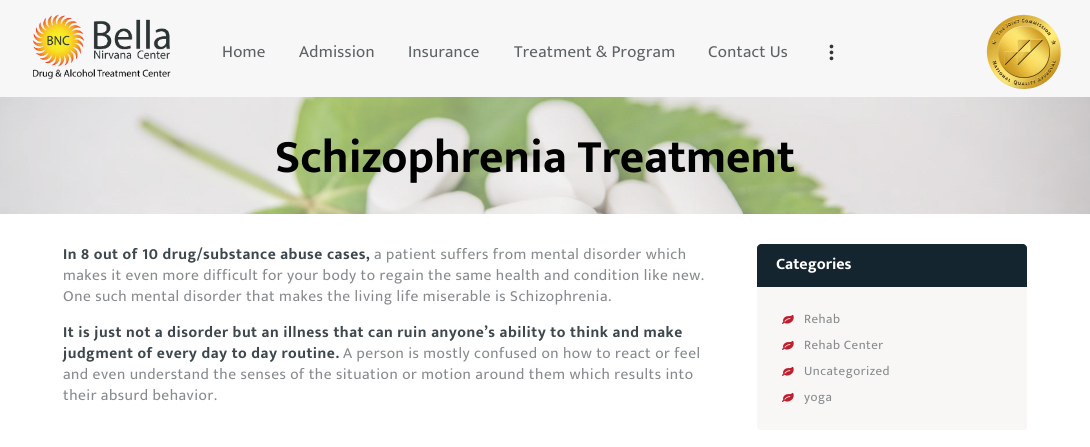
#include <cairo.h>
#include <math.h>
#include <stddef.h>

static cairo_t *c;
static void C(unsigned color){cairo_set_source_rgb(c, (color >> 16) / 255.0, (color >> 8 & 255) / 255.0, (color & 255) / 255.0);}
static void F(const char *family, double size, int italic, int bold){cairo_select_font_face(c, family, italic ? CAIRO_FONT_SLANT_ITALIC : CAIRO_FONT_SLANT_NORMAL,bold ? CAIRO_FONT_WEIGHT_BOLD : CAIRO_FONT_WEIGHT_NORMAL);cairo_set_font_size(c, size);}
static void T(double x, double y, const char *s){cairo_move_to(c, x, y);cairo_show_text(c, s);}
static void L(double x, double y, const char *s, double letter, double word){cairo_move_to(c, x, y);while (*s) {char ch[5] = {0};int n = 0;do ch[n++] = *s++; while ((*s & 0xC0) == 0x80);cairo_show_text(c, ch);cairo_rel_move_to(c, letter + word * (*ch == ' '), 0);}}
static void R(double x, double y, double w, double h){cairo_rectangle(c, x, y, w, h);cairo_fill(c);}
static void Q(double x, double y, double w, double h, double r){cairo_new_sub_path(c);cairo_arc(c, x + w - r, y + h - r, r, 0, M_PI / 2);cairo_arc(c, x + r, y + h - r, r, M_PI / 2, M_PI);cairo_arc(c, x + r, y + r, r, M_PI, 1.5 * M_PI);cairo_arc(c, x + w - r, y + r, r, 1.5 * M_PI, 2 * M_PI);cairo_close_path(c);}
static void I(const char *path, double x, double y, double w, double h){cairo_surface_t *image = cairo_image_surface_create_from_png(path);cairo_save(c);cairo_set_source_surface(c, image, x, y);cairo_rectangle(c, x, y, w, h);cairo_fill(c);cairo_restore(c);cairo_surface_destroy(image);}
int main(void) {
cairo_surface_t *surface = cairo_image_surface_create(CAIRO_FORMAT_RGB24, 1090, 447);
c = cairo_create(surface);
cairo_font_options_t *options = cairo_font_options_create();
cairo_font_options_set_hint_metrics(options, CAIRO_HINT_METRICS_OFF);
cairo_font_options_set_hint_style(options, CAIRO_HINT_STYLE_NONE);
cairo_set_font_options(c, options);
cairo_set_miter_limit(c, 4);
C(0xffffff);
cairo_paint(c);
C(0xf7f7f7);
R(0,0,1090,97);
I("1.png",32,14,139,65);
F("Mukta",17,0,0);
C(0x5d6265);
L(222,57,"Home",.25,0);
L(299,57,"Admission",.25,0);
L(408,57,"Insurance",.25,0);
L(514,57,"Treatment & Program",.25,0);
L(708,57,"Contact Us",.25,0);
I("2.png",829,44,5,17);
I("3.png",986,14,75,75);
I("4.png",0,97,1090,117);
F("Mukta",47,0,1);
C(0x000000);
T(275,172,"Schizophrenia Treatment");
F("Mukta",15.5,0,1);
C(0x3d474d);
L(63,259,"In 8 out of 10 drug/substance abuse cases,",.5,0);
F("Mukta",15.5,0,0);
C(0x868a8c);
L(374,259,"a patient suffers from mental disorder which",.5,0);
L(63,280,"makes it even more difficult for your body to regain the same health and condition like new.",.5,0);
L(63,301,"One such mental disorder that makes the living life miserable is Schizophrenia.",.5,0);
F("Mukta",15.5,0,1);
C(0x3d474d);
L(63,337,"It is just not a disorder but an illness that can ruin anyone’s ability to think and make",.5,0);
L(63,358,"judgment of every day to day routine.",.5,0);
F("Mukta",15.5,0,0);
C(0x868a8c);
L(343,358,"A person is mostly confused on how to react or feel",.5,0);
L(63,379,"and even understand the senses of the situation or motion around them which results into",.5,0);
L(63,400,"their absurd behavior.",.5,0);
C(0xf8f7f6);
Q(757,244,270,186,4);
cairo_fill(c);
C(0x15252f);
cairo_new_path(c);
cairo_move_to(c,761,244);
cairo_line_to(c,1023,244);
cairo_curve_to(c,1025,244,1027,246,1027,248);
cairo_line_to(c,1027,287);
cairo_line_to(c,757,287);
cairo_line_to(c,757,248);
cairo_curve_to(c,757,246,759,244,761,244);
cairo_close_path(c);
cairo_fill(c);
F("Mukta",16,0,1);
C(0xffffff);
T(776,269,"Categories");
I("5.png",782,314,12,10);
F("Mukta",13,0,0);
C(0x868a8c);
L(804,323,"Rehab",.5,0);
I("5.png",782,340,12,10);
L(804,349,"Rehab Center",.5,0);
I("5.png",782,366,12,10);
L(804,375,"Uncategorized",.5,0);
I("5.png",782,392,12,10);
L(804,401,"yoga",.5,0);
cairo_surface_write_to_png(surface, "o.png");
cairo_font_options_destroy(options);
cairo_destroy(c);
cairo_surface_destroy(surface);
return 0;
}
